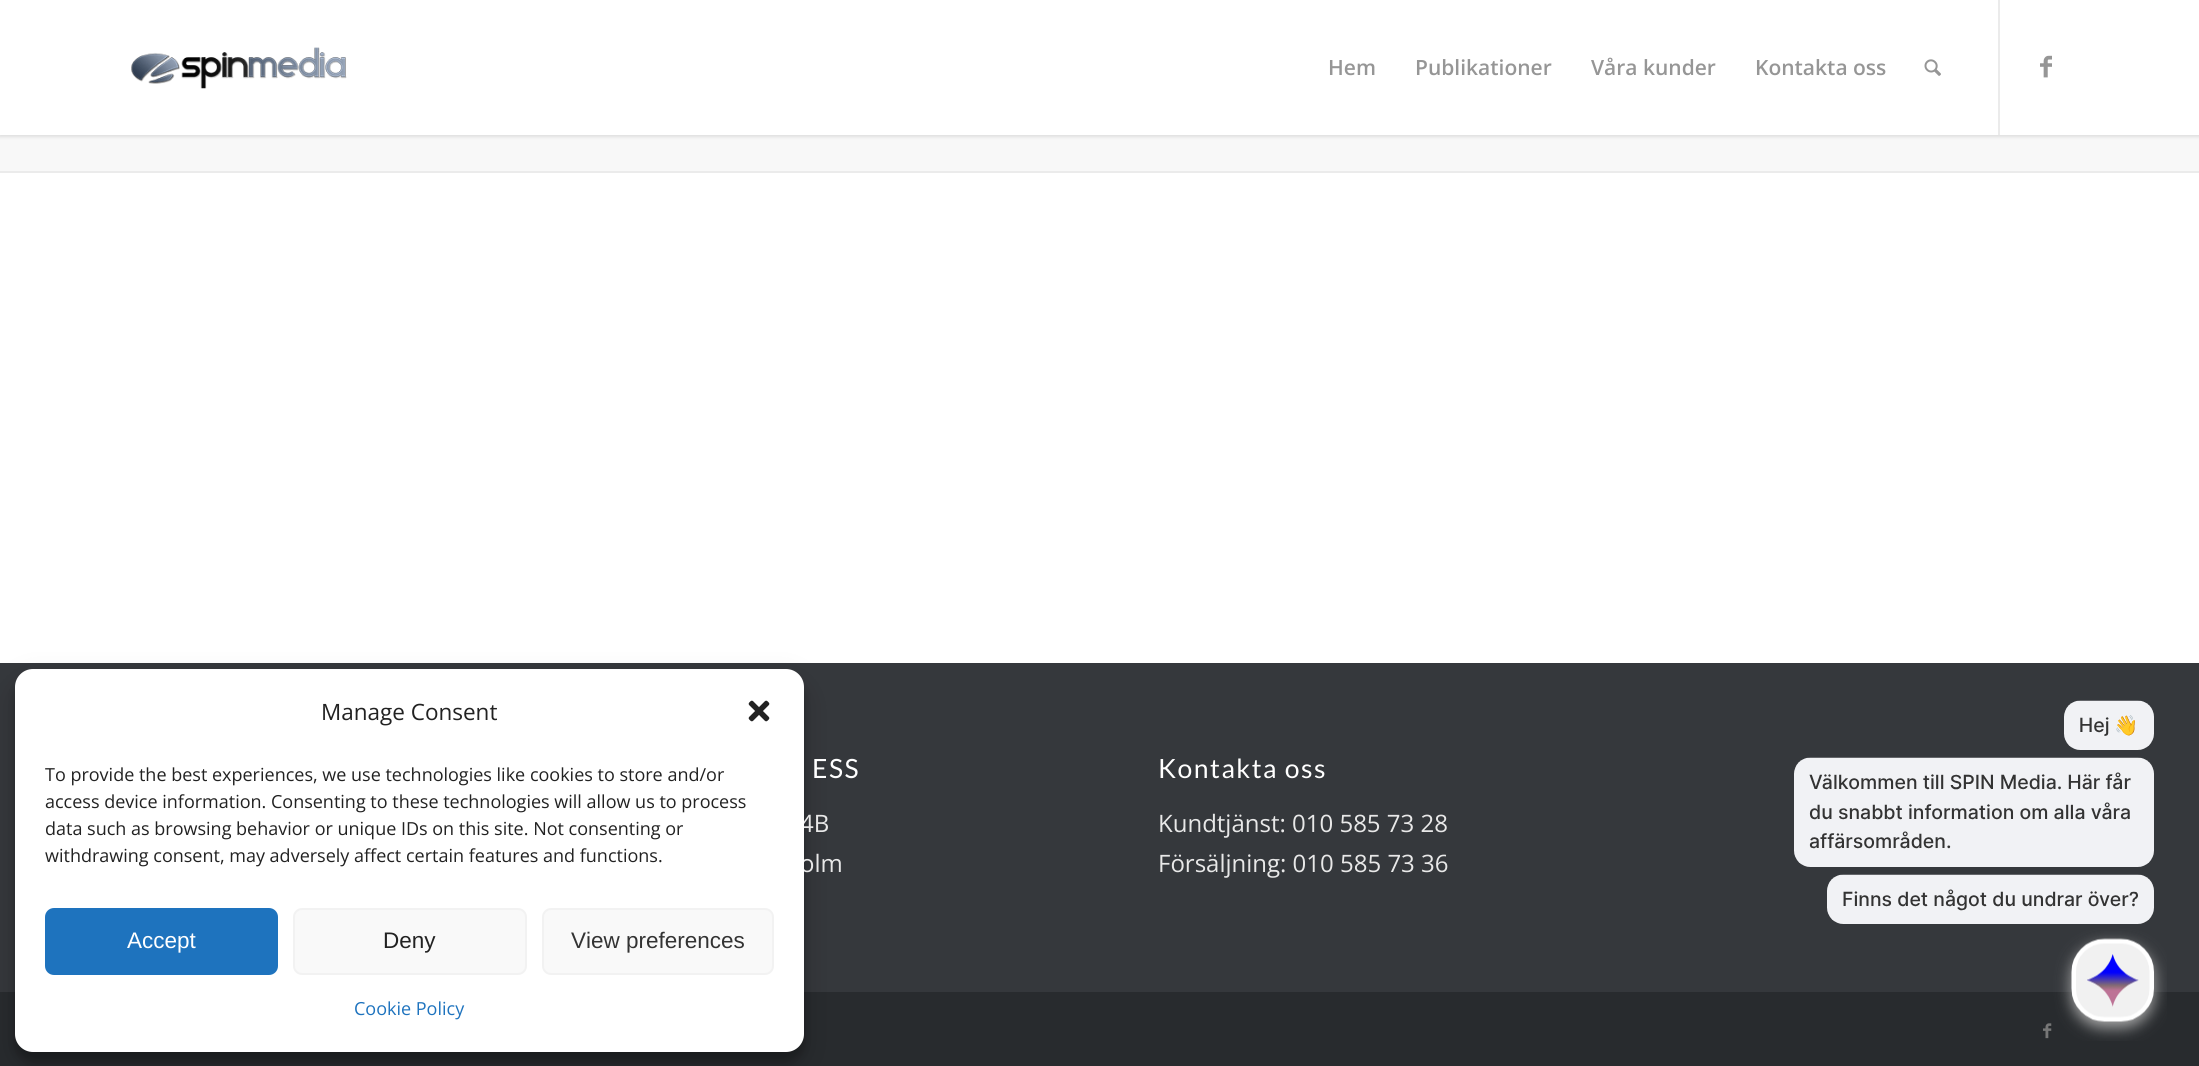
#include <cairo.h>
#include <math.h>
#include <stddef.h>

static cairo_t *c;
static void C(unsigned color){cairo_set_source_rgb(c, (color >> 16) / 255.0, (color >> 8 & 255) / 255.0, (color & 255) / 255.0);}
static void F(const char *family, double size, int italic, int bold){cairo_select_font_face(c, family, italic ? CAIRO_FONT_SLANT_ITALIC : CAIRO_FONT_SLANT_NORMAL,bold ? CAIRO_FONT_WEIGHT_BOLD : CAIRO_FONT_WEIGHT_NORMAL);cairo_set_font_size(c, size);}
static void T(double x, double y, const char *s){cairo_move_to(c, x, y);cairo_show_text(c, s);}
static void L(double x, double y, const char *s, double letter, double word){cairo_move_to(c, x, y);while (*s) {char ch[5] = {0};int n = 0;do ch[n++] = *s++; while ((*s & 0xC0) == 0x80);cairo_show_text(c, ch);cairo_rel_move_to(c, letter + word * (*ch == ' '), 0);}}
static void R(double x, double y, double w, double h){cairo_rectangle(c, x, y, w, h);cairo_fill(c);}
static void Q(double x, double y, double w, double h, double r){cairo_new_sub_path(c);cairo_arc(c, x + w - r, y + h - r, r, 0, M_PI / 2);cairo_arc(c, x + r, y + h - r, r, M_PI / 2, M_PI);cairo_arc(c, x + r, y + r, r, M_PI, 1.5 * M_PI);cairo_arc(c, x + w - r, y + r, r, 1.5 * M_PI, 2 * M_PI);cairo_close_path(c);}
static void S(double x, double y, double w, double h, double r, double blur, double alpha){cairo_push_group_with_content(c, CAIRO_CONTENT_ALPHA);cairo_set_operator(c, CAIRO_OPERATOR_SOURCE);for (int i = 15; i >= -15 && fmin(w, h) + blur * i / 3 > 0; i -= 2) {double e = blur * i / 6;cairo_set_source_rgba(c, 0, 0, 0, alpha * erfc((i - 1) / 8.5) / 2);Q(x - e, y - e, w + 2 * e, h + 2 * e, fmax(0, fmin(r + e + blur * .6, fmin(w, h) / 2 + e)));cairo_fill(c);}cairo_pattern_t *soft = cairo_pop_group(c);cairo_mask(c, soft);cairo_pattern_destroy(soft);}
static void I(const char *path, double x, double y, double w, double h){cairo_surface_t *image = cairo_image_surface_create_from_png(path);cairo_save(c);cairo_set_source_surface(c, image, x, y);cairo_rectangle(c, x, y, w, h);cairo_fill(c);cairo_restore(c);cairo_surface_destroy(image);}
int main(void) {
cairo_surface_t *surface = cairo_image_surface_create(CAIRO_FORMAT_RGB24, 2199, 1066);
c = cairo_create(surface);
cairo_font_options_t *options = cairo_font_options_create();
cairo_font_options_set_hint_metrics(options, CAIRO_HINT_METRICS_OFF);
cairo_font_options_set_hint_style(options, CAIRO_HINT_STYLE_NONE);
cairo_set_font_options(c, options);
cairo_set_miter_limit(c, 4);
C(0xffffff);
cairo_paint(c);
C(0x35383c);
R(0,663,2199,329);
C(0x282b2e);
R(0,992,2199,74);
C(0x000000);
S(15,678,789,383,18,4.5,.23);
S(15,684,789,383,18,15,.19);
F("Open Sans",24,0,0);
C(0xe8e8e8);
T(800,832,"4B");
T(800,872,"olm");
C(0xffffff);
Q(15,669,789,383,18);
cairo_fill(c);
F("Open Sans",22.5,0,0);
C(0x222222);
T(321,720,"Manage Consent");
I("1.png",748,700,22,22);
F("Open Sans",18,0,0);
T(45,781,"To provide the best experiences, we use technologies like cookies to store and/or");
T(45,808,"access device information. Consenting to these technologies will allow us to process");
T(45,835,"data such as browsing behavior or unique IDs on this site. Not consenting or");
T(45,862,"withdrawing consent, may adversely affect certain features and functions.");
C(0x1e73be);
Q(46,909,231,65,8);
cairo_fill_preserve(c);
cairo_stroke(c);
F("Liberation Sans",22.5,0,0);
C(0xffffff);
T(127,948,"Accept");
C(0xf9f9f9);
Q(294,909,232,65,8);
cairo_fill_preserve(c);
C(0xf2f2f2);
cairo_stroke(c);
C(0x222222);
T(383,948,"Deny");
C(0xf9f9f9);
Q(543,909,230,65,8);
cairo_fill_preserve(c);
C(0xf2f2f2);
cairo_stroke(c);
C(0x333333);
T(571,948,"View preferences");
F("Open Sans",18,0,0);
C(0x1e73be);
T(354,1015,"Cookie Policy");
C(0xf8f8f8);
R(0,135,2199,36);
C(0x000000);
S(-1,-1,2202,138,0,1.5,.1);
C(0xffffff);
R(0,0,2199,135);
I("2.png",131,47,216,42);
C(0xebebeb);
R(1998,0,2,135);
F("Open Sans SemiBold",21,0,0);
C(0x969696);
T(1328,75,"Hem");
T(1415,75,"Publikationer");
T(1591,75,"Våra kunder");
T(1755,75,"Kontakta oss");
I("3.png",1924,59,17,17);
I("4.png",2040,55,12,23);
C(0xebebeb);
R(0,171,2199,2);
F("Lato",26.5,0,0);
C(0xffffff);
L(812,778,"ESS",1.5,0);
L(1158,778,"Kontakta oss",1.5,0);
F("Open Sans",24,0,0);
C(0xe8e8e8);
T(1158,832,"Kundtjänst: 010 585 73 28");
T(1158,872,"Försäljning: 010 585 73 36");
I("5.png",2043,1023,9,16);
I("6.png",1794,700,373,341);
cairo_surface_write_to_png(surface, "o.png");
cairo_font_options_destroy(options);
cairo_destroy(c);
cairo_surface_destroy(surface);
return 0;
}
